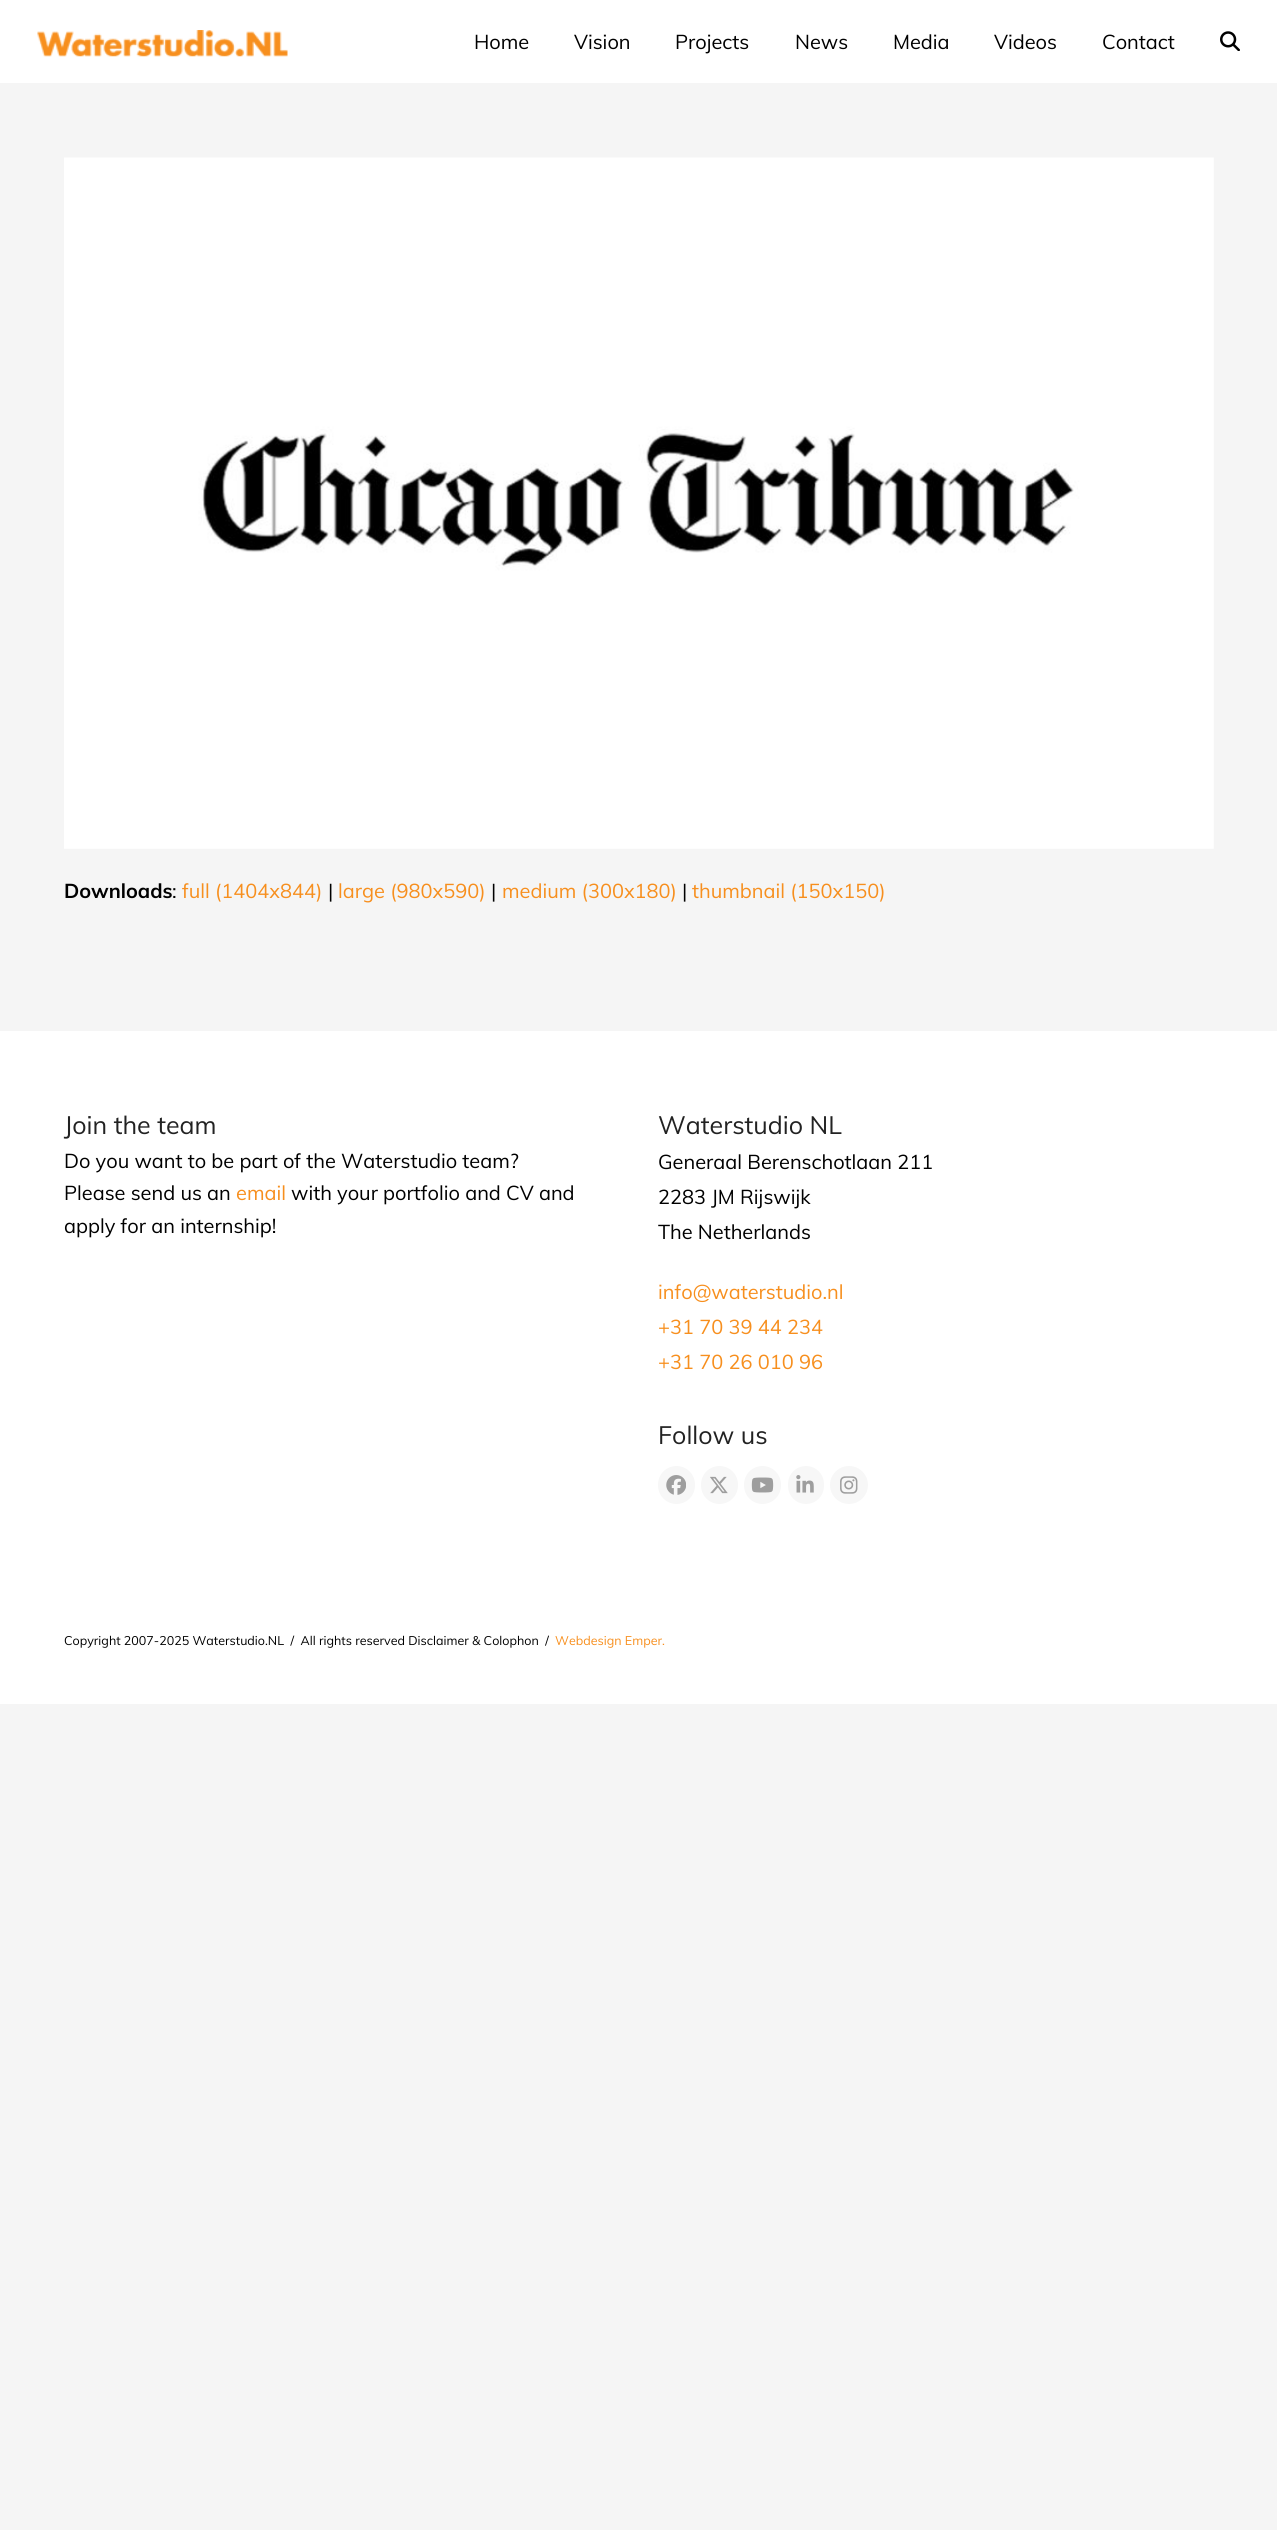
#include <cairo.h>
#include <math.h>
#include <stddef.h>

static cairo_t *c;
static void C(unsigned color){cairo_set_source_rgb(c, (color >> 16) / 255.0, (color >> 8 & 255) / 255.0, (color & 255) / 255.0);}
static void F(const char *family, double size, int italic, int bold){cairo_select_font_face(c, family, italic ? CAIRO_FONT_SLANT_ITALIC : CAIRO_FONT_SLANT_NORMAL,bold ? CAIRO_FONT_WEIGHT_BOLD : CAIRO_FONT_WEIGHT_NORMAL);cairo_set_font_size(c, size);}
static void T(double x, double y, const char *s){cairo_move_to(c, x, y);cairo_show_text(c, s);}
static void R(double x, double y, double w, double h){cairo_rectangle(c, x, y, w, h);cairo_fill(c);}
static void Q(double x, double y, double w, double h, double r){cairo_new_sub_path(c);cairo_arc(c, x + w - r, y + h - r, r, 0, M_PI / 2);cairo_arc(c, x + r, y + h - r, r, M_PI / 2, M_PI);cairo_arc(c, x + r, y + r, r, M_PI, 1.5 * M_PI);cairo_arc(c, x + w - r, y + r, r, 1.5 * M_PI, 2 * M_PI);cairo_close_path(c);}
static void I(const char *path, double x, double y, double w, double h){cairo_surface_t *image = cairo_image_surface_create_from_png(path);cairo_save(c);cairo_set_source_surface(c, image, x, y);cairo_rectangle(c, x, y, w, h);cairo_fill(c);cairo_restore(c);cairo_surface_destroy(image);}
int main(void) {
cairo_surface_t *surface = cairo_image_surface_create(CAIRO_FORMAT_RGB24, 1277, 2530);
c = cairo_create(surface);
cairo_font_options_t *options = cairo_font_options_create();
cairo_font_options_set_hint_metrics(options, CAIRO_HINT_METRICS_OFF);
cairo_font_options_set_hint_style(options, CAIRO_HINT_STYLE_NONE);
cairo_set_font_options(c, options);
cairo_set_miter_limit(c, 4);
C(0xf5f5f5);
cairo_paint(c);
C(0xffffff);
R(0,0,1277,83);
I("1.png",37,30,251,27);
F("Muli",20,0,0);
C(0x000000);
T(474,49,"Home");
T(574,49,"Vision");
T(675,49,"Projects");
T(795,49,"News");
T(893,49,"Media");
T(994,49,"Videos");
T(1102,49,"Contact");
I("2.png",1220,31,20,20);
I("3.png",64,157,1150,692);
F("Muli",20,0,1);
T(64,898,"Downloads");
F("Muli",20,0,0);
T(172,898,":");
C(0xf78f1e);
T(182,898,"full (1404x844)");
C(0x000000);
T(328,898,"|");
C(0xf78f1e);
T(338,898,"large (980x590)");
C(0x000000);
T(491,898,"|");
C(0xf78f1e);
T(502,898,"medium (300x180)");
C(0x000000);
T(682,898,"|");
C(0xf78f1e);
T(692,898,"thumbnail (150x150)");
C(0xffffff);
R(0,1031,1277,673);
F("Muli",25,0,0);
C(0x222222);
T(64,1134,"Join the team");
F("Muli",20,0,0);
C(0x000000);
T(64,1168,"Do you want to be part of the Waterstudio team?");
T(64,1200,"Please send us an");
C(0xf78f1e);
T(236,1200,"email");
C(0x000000);
T(291,1200,"with your portfolio and CV and");
T(64,1233,"apply for an internship!");
F("Muli",25,0,0);
C(0x222222);
T(658,1134,"Waterstudio NL");
F("Muli",20,0,0);
C(0x000000);
T(658,1169,"Generaal Berenschotlaan 211");
T(658,1204,"2283 JM Rijswijk");
T(658,1239,"The Netherlands");
C(0xf78f1e);
T(658,1299,"info@waterstudio.nl");
T(658,1334,"+31 70 39 44 234");
T(658,1369,"+31 70 26 010 96");
F("Muli",25,0,0);
C(0x222222);
T(658,1444,"Follow us");
C(0xf7f7f7);
Q(658,1466,37,38,18.5);
cairo_fill(c);
I("4.png",666,1475,20,20);
Q(701,1466,37,38,18.5);
cairo_fill(c);
I("5.png",710,1476,18,18);
Q(744,1466,37,38,18.5);
cairo_fill(c);
I("6.png",751,1477,23,16);
Q(788,1466,36,38,18);
cairo_fill(c);
I("7.png",796,1475,18,18);
cairo_arc(c,849,1485,19,0,2 * M_PI);
cairo_fill(c);
I("8.png",840,1476,18,18);
F("Muli",12.5,0,0);
C(0x000000);
T(64,1645,"Copyright 2007-2025 Waterstudio.NL  /  All rights reserved Disclaimer & Colophon  /");
C(0xf78f1e);
T(555,1645,"Webdesign Emper.");
cairo_surface_write_to_png(surface, "o.png");
cairo_font_options_destroy(options);
cairo_destroy(c);
cairo_surface_destroy(surface);
return 0;
}
